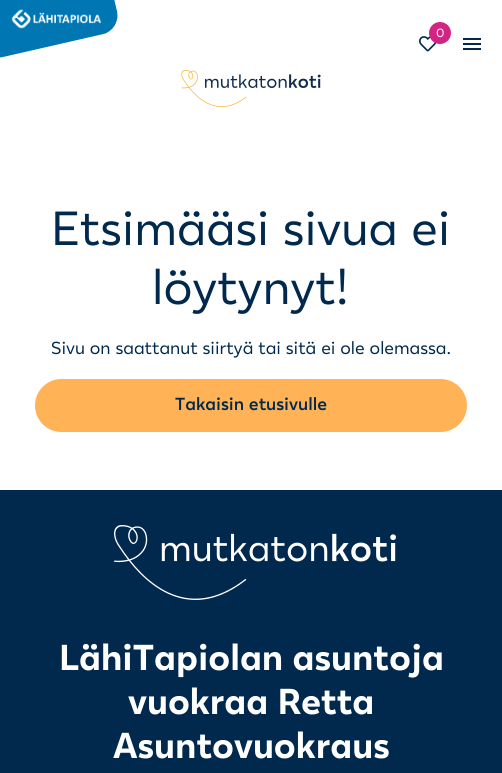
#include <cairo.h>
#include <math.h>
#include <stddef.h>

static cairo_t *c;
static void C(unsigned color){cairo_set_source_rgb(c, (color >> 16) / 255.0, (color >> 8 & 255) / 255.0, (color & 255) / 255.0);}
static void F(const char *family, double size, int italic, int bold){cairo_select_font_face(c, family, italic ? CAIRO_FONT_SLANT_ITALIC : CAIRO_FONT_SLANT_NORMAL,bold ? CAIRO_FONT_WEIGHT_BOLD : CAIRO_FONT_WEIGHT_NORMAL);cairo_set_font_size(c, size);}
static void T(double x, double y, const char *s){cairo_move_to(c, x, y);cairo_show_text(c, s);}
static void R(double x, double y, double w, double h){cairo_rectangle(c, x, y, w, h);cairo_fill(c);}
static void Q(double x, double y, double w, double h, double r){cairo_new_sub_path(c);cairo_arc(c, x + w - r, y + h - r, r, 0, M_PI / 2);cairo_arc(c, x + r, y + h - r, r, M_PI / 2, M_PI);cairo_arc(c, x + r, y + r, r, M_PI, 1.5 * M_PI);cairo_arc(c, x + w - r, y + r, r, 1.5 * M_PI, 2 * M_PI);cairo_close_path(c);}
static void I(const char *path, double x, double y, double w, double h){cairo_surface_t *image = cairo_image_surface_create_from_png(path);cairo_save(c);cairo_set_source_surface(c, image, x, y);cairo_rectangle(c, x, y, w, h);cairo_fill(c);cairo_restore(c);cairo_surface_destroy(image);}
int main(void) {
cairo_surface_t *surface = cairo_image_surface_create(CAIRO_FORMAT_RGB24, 502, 773);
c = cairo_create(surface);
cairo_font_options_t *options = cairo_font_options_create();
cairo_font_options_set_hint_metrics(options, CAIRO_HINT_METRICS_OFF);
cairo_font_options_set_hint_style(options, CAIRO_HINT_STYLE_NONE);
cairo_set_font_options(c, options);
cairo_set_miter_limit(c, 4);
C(0xffffff);
cairo_paint(c);
I("1.png",0,0,118,58);
I("2.png",419,36,17,16);
C(0xd32483);
cairo_arc(c,440,33,11,0,2 * M_PI);
cairo_fill(c);
F("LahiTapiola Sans",12,0,0);
C(0xffffff);
T(436,37,"0");
C(0x00294d);
R(463,38,18,2);
R(463,43,18,2);
R(463,48,18,2);
I("3.png",181,70,140,37);
F("LahiTapiola Sans",48,0,0);
T(51,245,"Etsimääsi sivua ei");
T(152,304,"löytynyt!");
F("LahiTapiola Sans",17.5,0,0);
T(51,354,"Sivu on saattanut siirtyä tai sitä ei ole olemassa.");
C(0xffb256);
Q(36,380,430,51,25.5);
cairo_fill_preserve(c);
cairo_stroke(c);
F("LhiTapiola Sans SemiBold",17.5,0,0);
C(0x00294d);
T(175,410,"Takaisin etusivulle");
R(0,490,502,283);
I("4.png",114,525,282,75);
F("LahiTapiola Sans",36,0,1);
C(0xffffff);
T(59,670,"LähiTapiolan asuntoja");
T(128,714,"vuokraa Retta");
T(113,758,"Asuntovuokraus");
cairo_surface_write_to_png(surface, "o.png");
cairo_font_options_destroy(options);
cairo_destroy(c);
cairo_surface_destroy(surface);
return 0;
}
